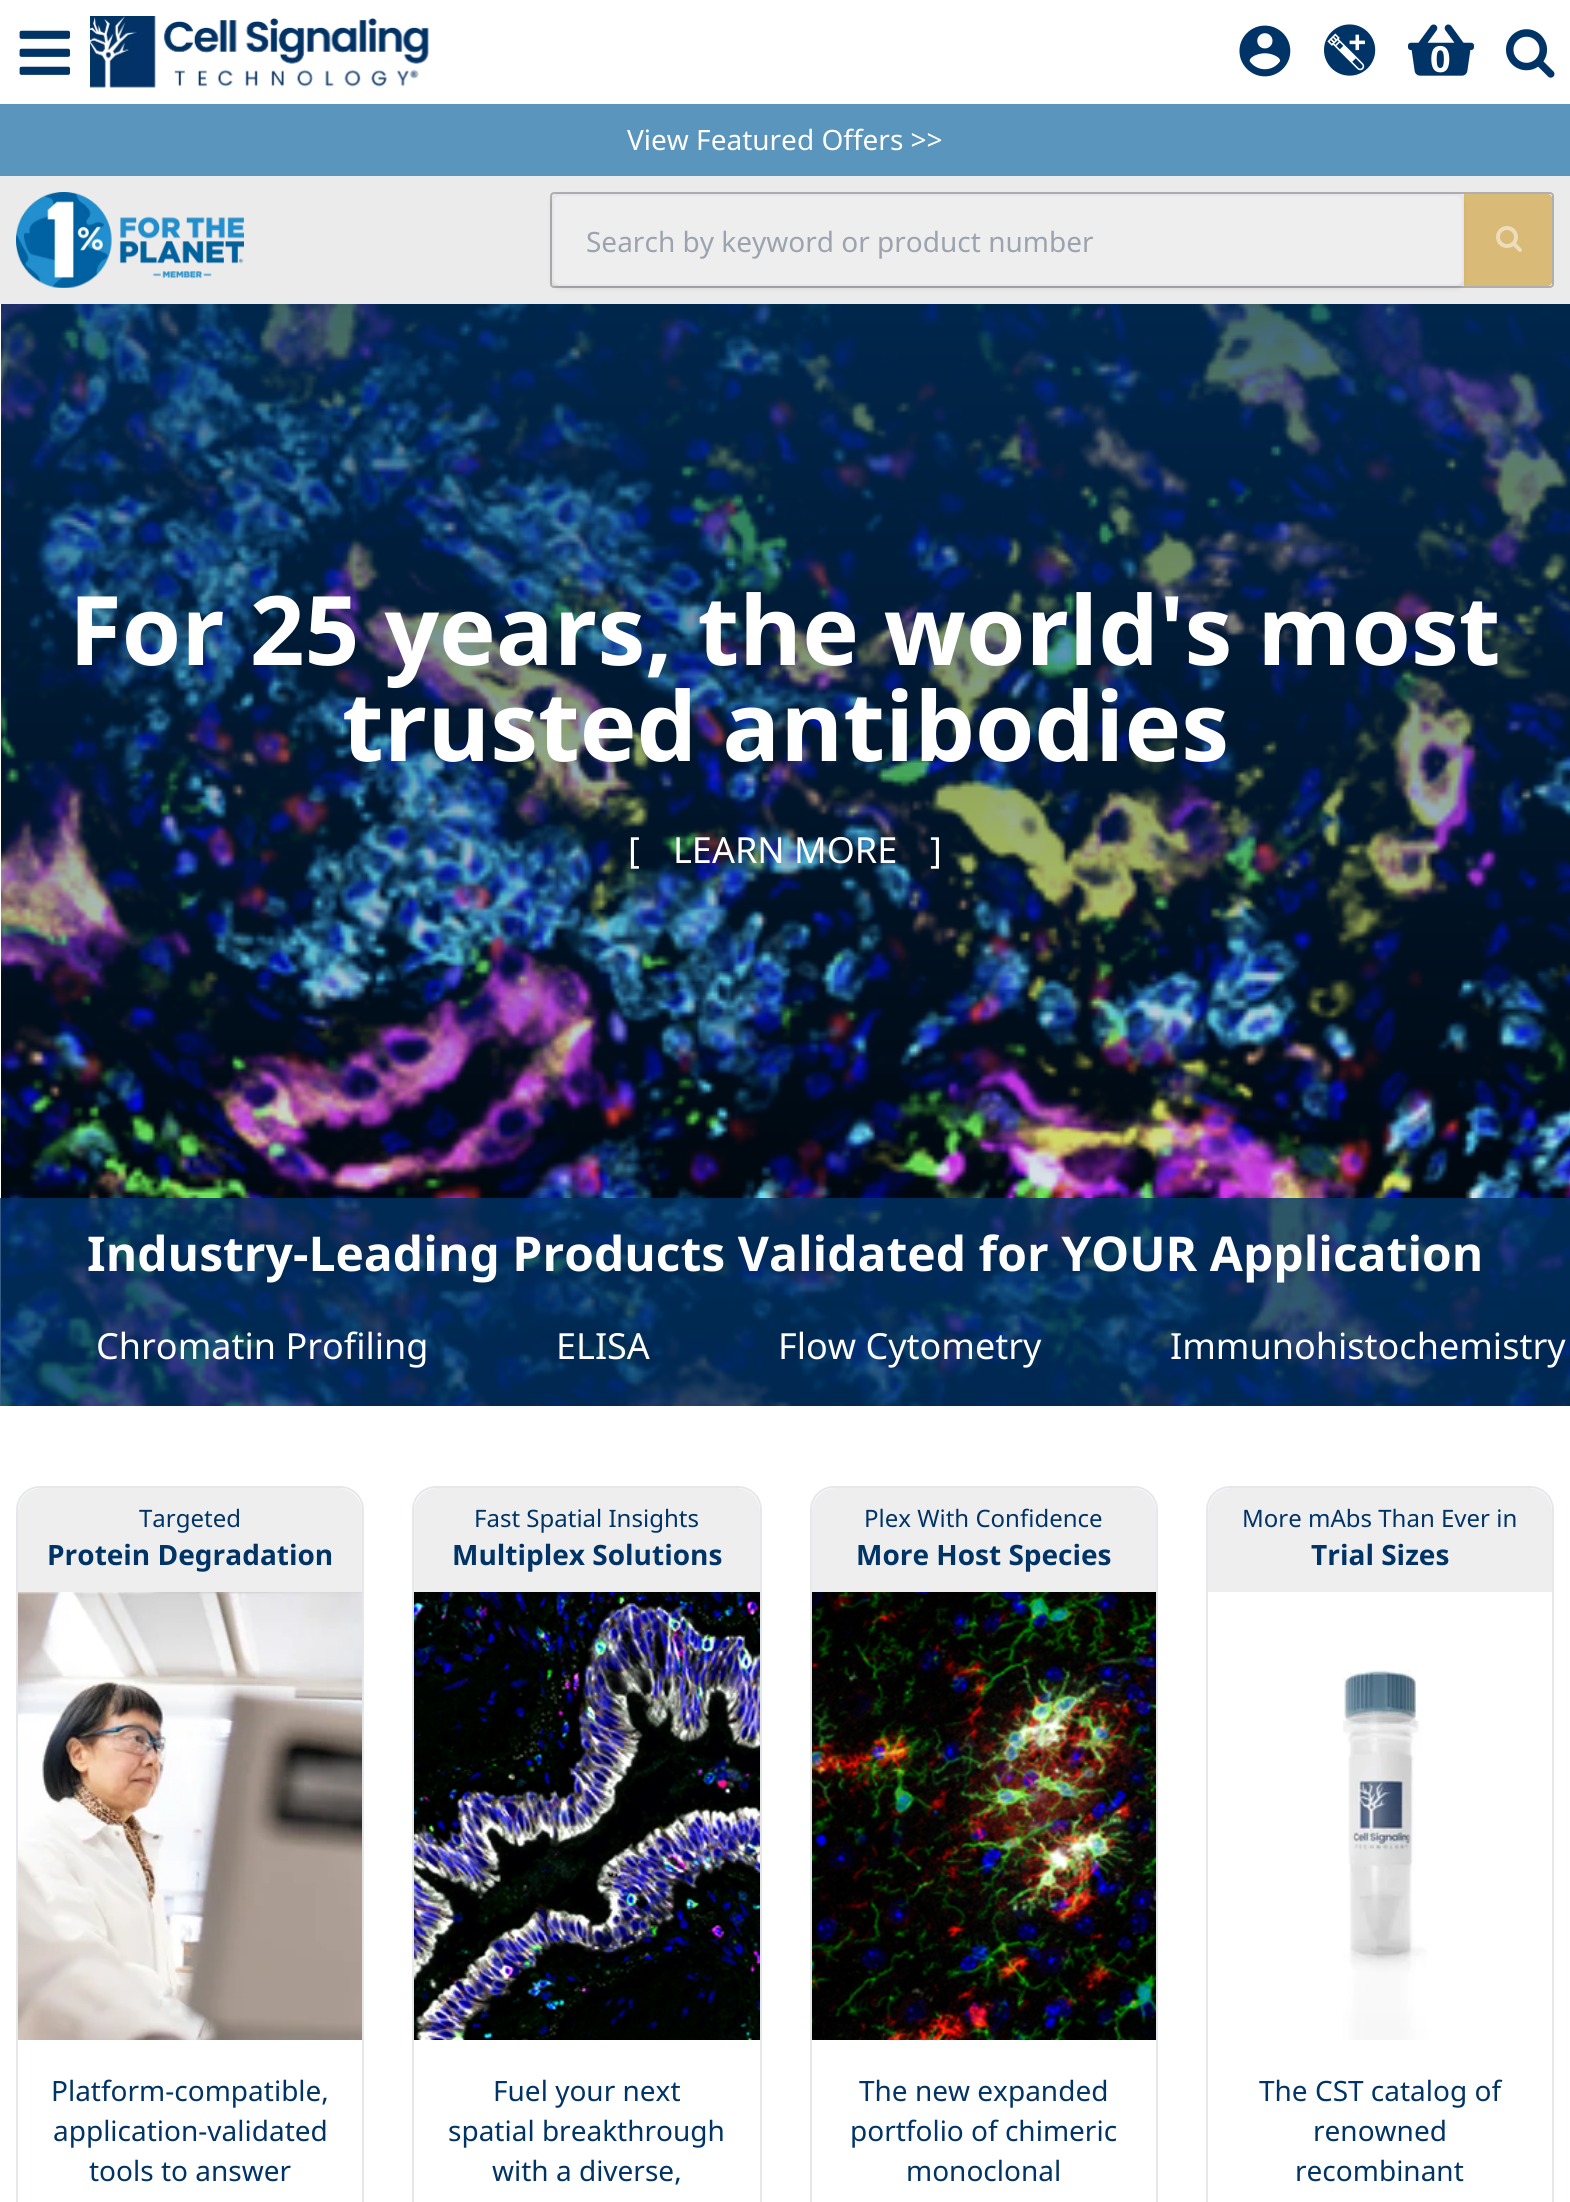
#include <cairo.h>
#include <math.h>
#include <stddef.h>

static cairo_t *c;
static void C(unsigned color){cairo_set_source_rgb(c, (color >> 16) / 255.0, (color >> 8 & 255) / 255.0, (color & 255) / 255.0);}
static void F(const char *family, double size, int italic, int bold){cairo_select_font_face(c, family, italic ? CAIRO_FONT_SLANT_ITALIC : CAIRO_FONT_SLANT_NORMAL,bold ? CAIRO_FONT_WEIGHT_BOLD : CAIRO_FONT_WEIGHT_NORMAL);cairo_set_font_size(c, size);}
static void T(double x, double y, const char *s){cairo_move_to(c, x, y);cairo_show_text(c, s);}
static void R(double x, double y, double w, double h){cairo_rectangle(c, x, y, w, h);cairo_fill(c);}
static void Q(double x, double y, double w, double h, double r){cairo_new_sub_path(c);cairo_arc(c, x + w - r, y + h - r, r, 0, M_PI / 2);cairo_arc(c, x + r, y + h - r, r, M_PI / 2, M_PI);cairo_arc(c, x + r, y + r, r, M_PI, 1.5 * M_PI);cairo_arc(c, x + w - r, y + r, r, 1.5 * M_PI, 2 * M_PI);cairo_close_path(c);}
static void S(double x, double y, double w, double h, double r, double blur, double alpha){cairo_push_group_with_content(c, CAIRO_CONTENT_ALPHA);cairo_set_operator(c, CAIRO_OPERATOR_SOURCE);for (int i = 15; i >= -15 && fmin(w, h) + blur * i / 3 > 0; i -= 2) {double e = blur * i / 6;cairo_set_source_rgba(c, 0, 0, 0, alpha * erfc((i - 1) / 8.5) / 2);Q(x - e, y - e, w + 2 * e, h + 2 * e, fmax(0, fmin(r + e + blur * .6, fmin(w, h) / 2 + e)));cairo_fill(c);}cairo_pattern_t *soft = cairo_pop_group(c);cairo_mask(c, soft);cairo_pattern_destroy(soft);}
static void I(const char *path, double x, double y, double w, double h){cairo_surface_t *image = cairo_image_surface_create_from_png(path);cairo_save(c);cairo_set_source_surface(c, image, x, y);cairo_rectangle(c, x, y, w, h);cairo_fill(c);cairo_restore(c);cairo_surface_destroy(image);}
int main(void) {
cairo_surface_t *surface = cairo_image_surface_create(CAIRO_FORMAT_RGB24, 1570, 2202);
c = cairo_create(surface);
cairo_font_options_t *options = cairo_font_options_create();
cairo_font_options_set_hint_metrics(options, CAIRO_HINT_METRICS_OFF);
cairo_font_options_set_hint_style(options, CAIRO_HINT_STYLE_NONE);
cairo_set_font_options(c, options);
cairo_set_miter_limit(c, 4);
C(0xffffff);
cairo_paint(c);
I("1.png",19,30,51,45);
I("2.png",90,16,339,72);
I("3.png",1239,25,52,52);
I("4.png",1324,24,52,52);
I("5.png",1408,24,66,52);
F("Noto Sans",36,0,1);
C(0xffffff);
T(1430,72,"0");
I("6.png",1506,29,49,49);
C(0x5a95bd);
R(0,104,1570,72);
F("Noto Sans",28,0,0);
C(0xffffff);
T(627,150,"View Featured Offers >>");
C(0xebebeb);
R(0,176,1570,128);
I("7.png",16,192,228,96);
Q(551,193,1002,94,3);
C(0xafafaf);
cairo_stroke(c);
C(0x000000);
S(554,198,908,88,6,2,.1);
S(552,196,912,92,8,3,.1);
C(0xeeeeee);
Q(553,195,910,90,7);
cairo_fill_preserve(c);
C(0xe5e7eb);
cairo_stroke(c);
C(0x9ca3af);
T(586,252,"Search by keyword or product number");
cairo_set_source_rgba(c,0.792,0.541,0.016,0.5);
cairo_new_path(c);
cairo_move_to(c,1464,194);
cairo_line_to(c,1548,194);
cairo_curve_to(c,1550,194,1552,196,1552,198);
cairo_line_to(c,1552,282);
cairo_curve_to(c,1552,284,1550,286,1548,286);
cairo_line_to(c,1464,286);
cairo_close_path(c);
cairo_fill(c);
I("8.png",1496,226,26,26);
I("9.png",1,304,1569,1102);
F("Noto Sans",96,0,1);
C(0xffffff);
T(69,665,"For 25 years, the world's most");
T(342,761,"trusted antibodies");
F("Noto Sans",36,0,0);
T(628,863,"[");
T(673,863,"LEARN MORE");
T(930,863,"]");
cairo_set_source_rgba(c,0,0.2,0.4,0.8);
R(0,1198,1570,208);
F("Noto Sans",48,0,1);
C(0xffffff);
T(87,1271,"Industry-Leading Products Validated for YOUR Application");
F("Noto Sans",36,0,0);
T(96,1359,"Chromatin Profiling");
T(556,1359,"ELISA");
T(778,1359,"Flow Cytometry");
T(1170,1359,"Immunohistochemistry");
Q(17,1487,346,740,23);
C(0xe5e7eb);
cairo_stroke(c);
C(0xeeeeee);
cairo_new_path(c);
cairo_move_to(c,42,1488);
cairo_line_to(c,338,1488);
cairo_curve_to(c,351.5,1488,362,1498.5,362,1512);
cairo_line_to(c,362,1592);
cairo_line_to(c,18,1592);
cairo_line_to(c,18,1512);
cairo_curve_to(c,18,1498.5,28.5,1488,42,1488);
cairo_close_path(c);
cairo_fill(c);
F("Noto Sans",24,0,0);
C(0x003366);
T(139,1527,"Targeted");
F("Noto Sans",28,0,1);
T(47,1565,"Protein Degradation");
I("10.png",18,1592,344,448);
F("Noto Sans",28,0,0);
T(51,2101,"Platform-compatible,");
T(53,2141,"application-validated");
T(89,2181,"tools to answer");
Q(413,1487,348,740,23);
C(0xe5e7eb);
cairo_stroke(c);
C(0xeeeeee);
cairo_new_path(c);
cairo_move_to(c,438,1488);
cairo_line_to(c,736,1488);
cairo_curve_to(c,749.5,1488,760,1498.5,760,1512);
cairo_line_to(c,760,1592);
cairo_line_to(c,414,1592);
cairo_line_to(c,414,1512);
cairo_curve_to(c,414,1498.5,424.5,1488,438,1488);
cairo_close_path(c);
cairo_fill(c);
F("Noto Sans",24,0,0);
C(0x003366);
T(474,1527,"Fast Spatial Insights");
F("Noto Sans",28,0,1);
T(452,1565,"Multiplex Solutions");
I("11.png",414,1592,346,448);
F("Noto Sans",28,0,0);
T(493,2101,"Fuel your next");
T(448,2141,"spatial breakthrough");
T(492,2181,"with a diverse,");
Q(811,1487,346,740,23);
C(0xe5e7eb);
cairo_stroke(c);
C(0xeeeeee);
cairo_new_path(c);
cairo_move_to(c,836,1488);
cairo_line_to(c,1132,1488);
cairo_curve_to(c,1145.5,1488,1156,1498.5,1156,1512);
cairo_line_to(c,1156,1592);
cairo_line_to(c,812,1592);
cairo_line_to(c,812,1512);
cairo_curve_to(c,812,1498.5,822.5,1488,836,1488);
cairo_close_path(c);
cairo_fill(c);
F("Noto Sans",24,0,0);
C(0x003366);
T(864,1527,"Plex With Confidence");
F("Noto Sans",28,0,1);
T(856,1565,"More Host Species");
I("12.png",812,1592,344,448);
F("Noto Sans",28,0,0);
T(859,2101,"The new expanded");
T(850,2141,"portfolio of chimeric");
T(906,2181,"monoclonal");
Q(1207,1487,346,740,23);
C(0xe5e7eb);
cairo_stroke(c);
C(0xeeeeee);
cairo_new_path(c);
cairo_move_to(c,1232,1488);
cairo_line_to(c,1528,1488);
cairo_curve_to(c,1541.5,1488,1552,1498.5,1552,1512);
cairo_line_to(c,1552,1592);
cairo_line_to(c,1208,1592);
cairo_line_to(c,1208,1512);
cairo_curve_to(c,1208,1498.5,1218.5,1488,1232,1488);
cairo_close_path(c);
cairo_fill(c);
F("Noto Sans",24,0,0);
C(0x003366);
T(1242,1527,"More mAbs Than Ever in");
F("Noto Sans",28,0,1);
T(1311,1565,"Trial Sizes");
I("13.png",1343,1670,84,370);
F("Noto Sans",28,0,0);
T(1259,2101,"The CST catalog of");
T(1313,2141,"renowned");
T(1295,2181,"recombinant");
cairo_surface_write_to_png(surface, "o.png");
cairo_font_options_destroy(options);
cairo_destroy(c);
cairo_surface_destroy(surface);
return 0;
}
